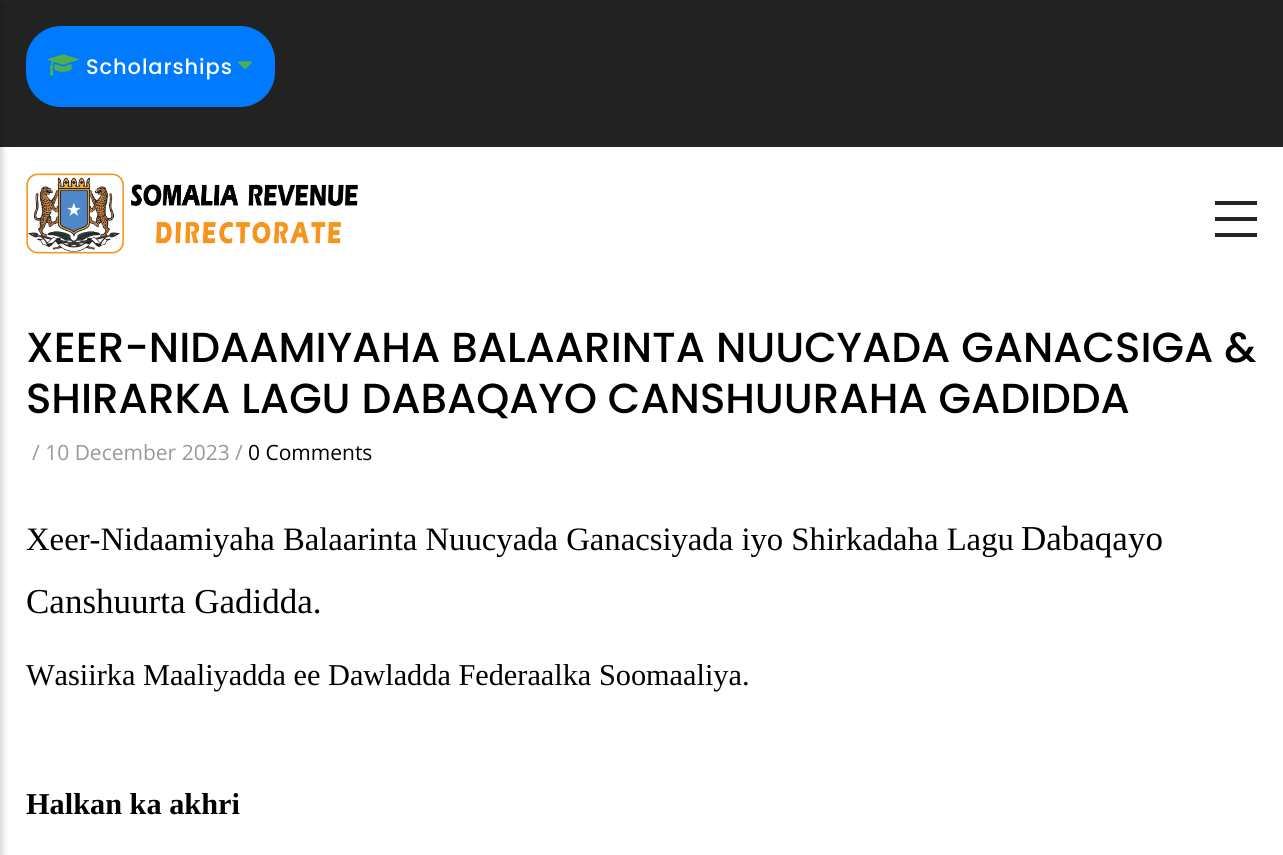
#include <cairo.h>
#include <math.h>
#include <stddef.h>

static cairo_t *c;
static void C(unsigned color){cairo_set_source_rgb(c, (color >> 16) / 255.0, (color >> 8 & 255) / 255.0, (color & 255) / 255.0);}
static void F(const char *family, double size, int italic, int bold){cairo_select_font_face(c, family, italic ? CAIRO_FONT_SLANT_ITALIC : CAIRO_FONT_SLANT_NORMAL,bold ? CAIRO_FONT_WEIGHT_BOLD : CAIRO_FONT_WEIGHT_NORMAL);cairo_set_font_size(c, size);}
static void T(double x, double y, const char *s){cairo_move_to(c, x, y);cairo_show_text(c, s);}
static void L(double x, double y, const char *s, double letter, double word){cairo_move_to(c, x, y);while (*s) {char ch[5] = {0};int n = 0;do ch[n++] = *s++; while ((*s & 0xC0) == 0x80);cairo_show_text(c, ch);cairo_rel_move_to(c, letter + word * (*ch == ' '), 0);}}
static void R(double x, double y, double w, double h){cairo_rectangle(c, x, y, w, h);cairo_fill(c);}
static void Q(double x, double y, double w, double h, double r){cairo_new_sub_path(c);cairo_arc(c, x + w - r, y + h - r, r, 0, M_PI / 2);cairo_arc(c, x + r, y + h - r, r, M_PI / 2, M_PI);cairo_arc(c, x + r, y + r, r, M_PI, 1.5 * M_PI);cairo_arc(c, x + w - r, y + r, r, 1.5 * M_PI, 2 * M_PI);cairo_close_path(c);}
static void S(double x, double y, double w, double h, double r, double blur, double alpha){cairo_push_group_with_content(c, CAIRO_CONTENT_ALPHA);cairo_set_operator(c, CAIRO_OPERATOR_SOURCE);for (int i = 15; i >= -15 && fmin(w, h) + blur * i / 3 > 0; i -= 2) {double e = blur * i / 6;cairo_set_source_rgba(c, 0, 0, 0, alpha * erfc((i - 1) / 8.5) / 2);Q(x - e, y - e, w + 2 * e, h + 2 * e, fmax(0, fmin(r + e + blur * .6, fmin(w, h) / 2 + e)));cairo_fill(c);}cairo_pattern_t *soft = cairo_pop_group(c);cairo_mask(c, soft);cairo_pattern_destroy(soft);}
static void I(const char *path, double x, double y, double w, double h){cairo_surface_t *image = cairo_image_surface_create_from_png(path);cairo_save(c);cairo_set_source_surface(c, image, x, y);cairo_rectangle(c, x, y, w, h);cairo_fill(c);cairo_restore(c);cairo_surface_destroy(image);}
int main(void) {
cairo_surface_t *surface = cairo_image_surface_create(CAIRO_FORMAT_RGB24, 1283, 855);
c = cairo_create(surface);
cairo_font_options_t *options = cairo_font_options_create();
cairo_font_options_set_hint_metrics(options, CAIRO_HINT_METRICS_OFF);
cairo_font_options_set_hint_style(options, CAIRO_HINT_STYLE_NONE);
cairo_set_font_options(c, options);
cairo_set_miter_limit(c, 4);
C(0xffffff);
cairo_paint(c);
C(0x222222);
R(0,0,1283,147);
C(0x000000);
S(-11,5,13,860,0,3.5,.2);
C(0x222222);
R(1215,201,42,4);
R(1215,217,42,4);
R(1215,233,42,4);
I("1.png",26,173,332,81);
C(0x007bff);
Q(26,26,249,81,35);
cairo_fill(c);
I("2.png",47,54,32,22);
F("Poppins Medium",21,0,0);
C(0xffffff);
L(86,74,"Scholarships",.9,0);
I("3.png",238,61,14,8);
F("Poppins Medium",42,0,0);
C(0x000000);
T(26,362,"XEER-NIDAAMIYAHA BALAARINTA NUUCYADA GANACSIGA &");
T(26,413,"SHIRARKA LAGU DABAQAYO CANSHUURAHA GADIDDA");
F("Open Sans",21,0,0);
C(0x999999);
T(32,460,"/ 10 December 2023");
T(235,460,"/");
C(0x000000);
T(248,460,"0 Comments");
F("Liberation Serif",32.7,0,0);
T(26,550,"Xeer-Nidaamiyaha Balaarinta Nuucyada Ganacsiyada iyo Shirkadaha Lagu");
F("Liberation Serif",35,0,0);
T(1021,550,"Dabaqayo");
T(26,613,"Canshuurta Gadidda.");
F("Liberation Serif",30.3,0,0);
T(26,685,"Wasiirka Maaliyadda ee Dawladda Federaalka Soomaaliya.");
F("Liberation Serif",30.3,0,1);
T(26,814,"Halkan ka akhri");
cairo_surface_write_to_png(surface, "o.png");
cairo_font_options_destroy(options);
cairo_destroy(c);
cairo_surface_destroy(surface);
return 0;
}
